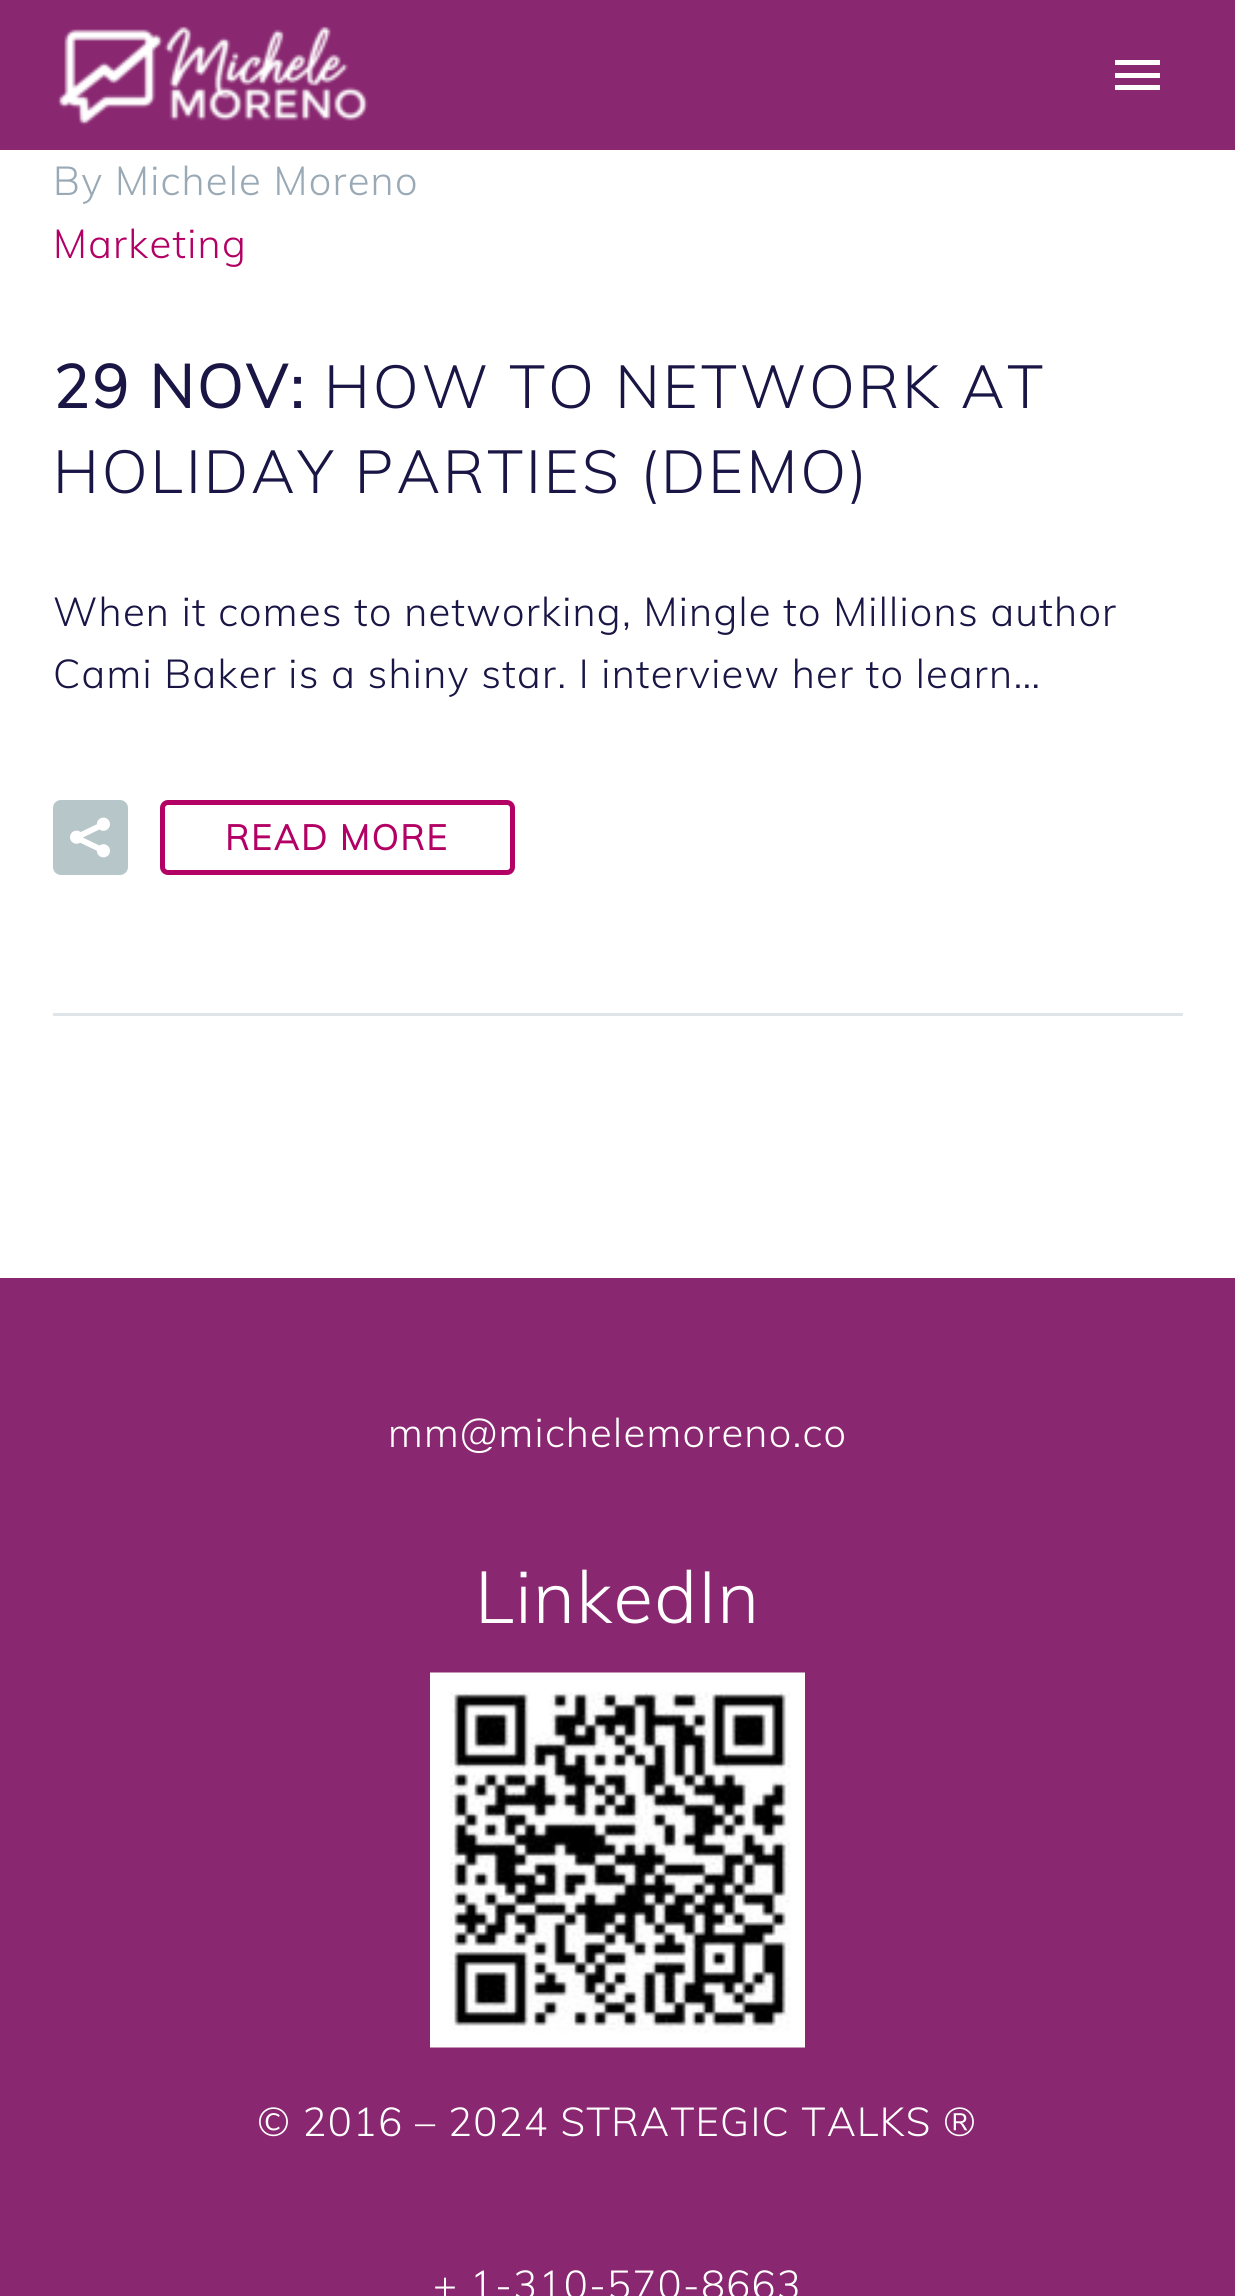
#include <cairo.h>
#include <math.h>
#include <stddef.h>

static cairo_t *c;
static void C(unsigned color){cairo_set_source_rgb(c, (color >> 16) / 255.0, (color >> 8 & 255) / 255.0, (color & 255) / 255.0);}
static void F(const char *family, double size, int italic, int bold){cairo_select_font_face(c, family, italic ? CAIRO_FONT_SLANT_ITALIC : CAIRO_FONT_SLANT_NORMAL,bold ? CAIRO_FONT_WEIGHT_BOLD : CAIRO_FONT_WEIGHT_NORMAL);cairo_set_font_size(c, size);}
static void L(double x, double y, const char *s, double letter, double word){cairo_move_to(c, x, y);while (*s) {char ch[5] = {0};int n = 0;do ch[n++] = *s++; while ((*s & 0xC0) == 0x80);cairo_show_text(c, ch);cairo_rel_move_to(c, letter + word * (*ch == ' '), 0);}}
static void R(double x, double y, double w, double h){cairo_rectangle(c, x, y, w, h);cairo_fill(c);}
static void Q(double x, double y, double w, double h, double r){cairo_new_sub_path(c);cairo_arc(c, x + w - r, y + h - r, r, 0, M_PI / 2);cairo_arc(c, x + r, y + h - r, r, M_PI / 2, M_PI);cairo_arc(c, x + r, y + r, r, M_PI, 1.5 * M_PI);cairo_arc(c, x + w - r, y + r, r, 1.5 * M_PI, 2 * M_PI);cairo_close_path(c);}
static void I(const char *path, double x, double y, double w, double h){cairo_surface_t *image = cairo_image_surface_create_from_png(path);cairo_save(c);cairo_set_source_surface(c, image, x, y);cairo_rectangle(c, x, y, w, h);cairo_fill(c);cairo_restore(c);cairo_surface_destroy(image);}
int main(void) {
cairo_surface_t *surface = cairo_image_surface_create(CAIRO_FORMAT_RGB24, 1235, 2296);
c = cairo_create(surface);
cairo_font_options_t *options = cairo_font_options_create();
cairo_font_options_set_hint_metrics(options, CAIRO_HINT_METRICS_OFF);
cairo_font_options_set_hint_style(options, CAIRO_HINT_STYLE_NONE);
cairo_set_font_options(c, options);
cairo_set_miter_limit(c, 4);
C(0x892770);
cairo_paint(c);
I("1.png",57,26,311,100);
C(0xffffff);
R(1115,60,45,5);
R(1115,73,45,5);
R(1115,85,45,5);
R(0,150,1235,1128);
C(0xdfe5e8);
R(53,1013,1130,3);
F("Muli Light",40,0,0);
C(0x99a9b5);
L(53,195,"By Michele Moreno",1.25,0);
C(0xb30064);
L(53,258,"Marketing",1.25,0);
F("Muli",60,0,1);
C(0x191545);
L(53,408,"29 NOV:",3,0);
F("Muli Light",60,0,0);
L(324,408,"HOW TO NETWORK AT",3,0);
L(53,493,"HOLIDAY PARTIES (DEMO)",3,0);
F("Muli Light",40,0,0);
L(53,626,"When it comes to networking, Mingle to Millions author",1.25,0);
L(53,688,"Cami Baker is a shiny star. I interview her to learn…",1.25,0);
C(0xb6c6c9);
Q(53,800,75,75,8);
cairo_fill(c);
I("2.png",70,817,40,41);
Q(162.5,802.5,350,70,5.5);
C(0xb30064);
cairo_set_line_width(c,5);
cairo_stroke(c);
F("Muli",35,0,1);
L(225,850,"READ MORE",2,0);
F("Muli Light",40,0,0);
C(0xffffff);
L(388,1447,"mm@michelemoreno.co",1.25,0);
F("Muli Light",72.5,0,0);
L(475,1623,"LinkedIn",1.25,0);
I("3.png",430,1672,375,376);
F("Muli Light",40,0,0);
L(257,2136,"© 2016 – 2024 STRATEGIC TALKS ®",1.25,0);
L(433,2299,"+ 1-310-570-8663",1.25,0);
cairo_surface_write_to_png(surface, "o.png");
cairo_font_options_destroy(options);
cairo_destroy(c);
cairo_surface_destroy(surface);
return 0;
}
